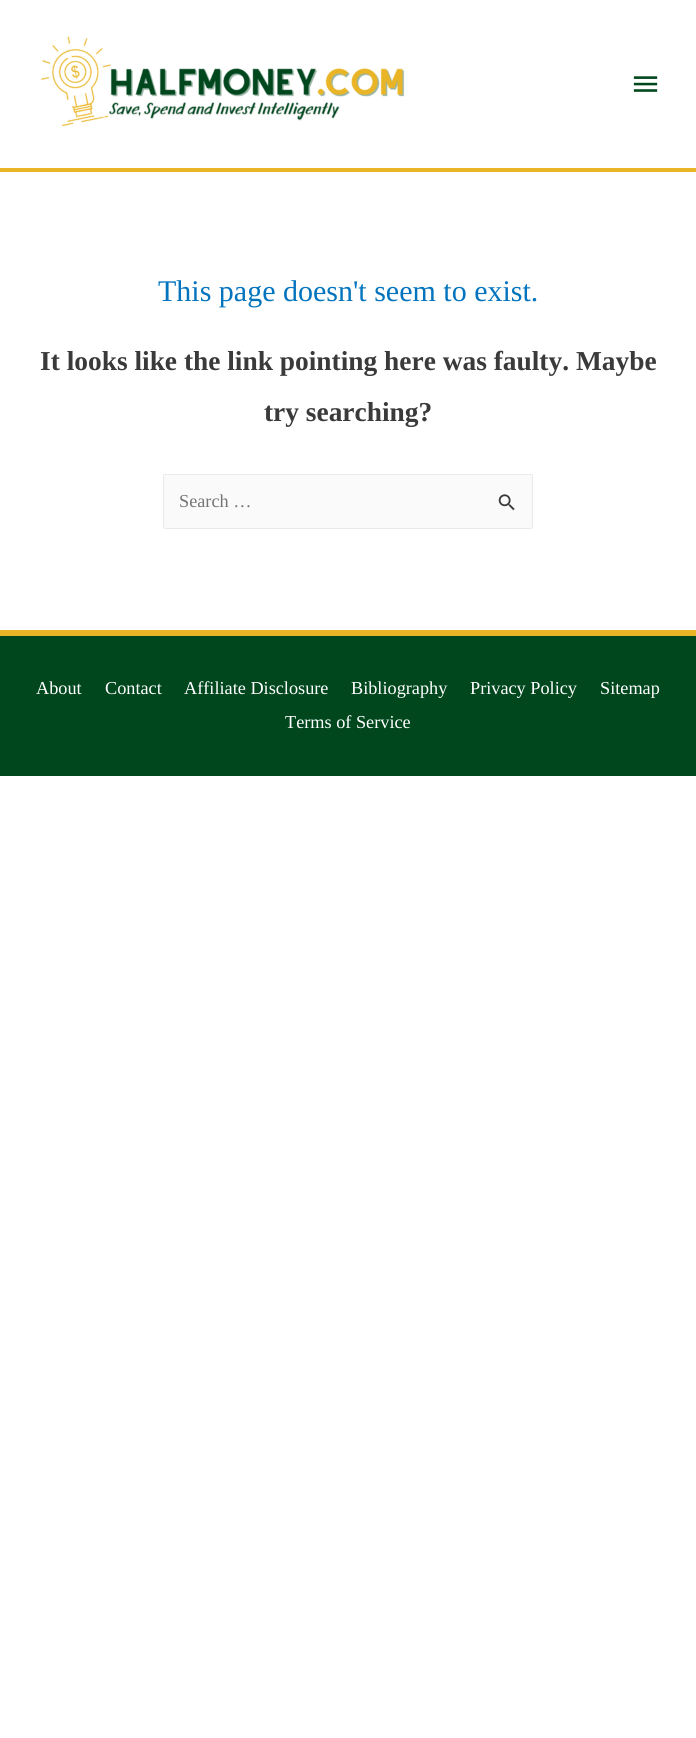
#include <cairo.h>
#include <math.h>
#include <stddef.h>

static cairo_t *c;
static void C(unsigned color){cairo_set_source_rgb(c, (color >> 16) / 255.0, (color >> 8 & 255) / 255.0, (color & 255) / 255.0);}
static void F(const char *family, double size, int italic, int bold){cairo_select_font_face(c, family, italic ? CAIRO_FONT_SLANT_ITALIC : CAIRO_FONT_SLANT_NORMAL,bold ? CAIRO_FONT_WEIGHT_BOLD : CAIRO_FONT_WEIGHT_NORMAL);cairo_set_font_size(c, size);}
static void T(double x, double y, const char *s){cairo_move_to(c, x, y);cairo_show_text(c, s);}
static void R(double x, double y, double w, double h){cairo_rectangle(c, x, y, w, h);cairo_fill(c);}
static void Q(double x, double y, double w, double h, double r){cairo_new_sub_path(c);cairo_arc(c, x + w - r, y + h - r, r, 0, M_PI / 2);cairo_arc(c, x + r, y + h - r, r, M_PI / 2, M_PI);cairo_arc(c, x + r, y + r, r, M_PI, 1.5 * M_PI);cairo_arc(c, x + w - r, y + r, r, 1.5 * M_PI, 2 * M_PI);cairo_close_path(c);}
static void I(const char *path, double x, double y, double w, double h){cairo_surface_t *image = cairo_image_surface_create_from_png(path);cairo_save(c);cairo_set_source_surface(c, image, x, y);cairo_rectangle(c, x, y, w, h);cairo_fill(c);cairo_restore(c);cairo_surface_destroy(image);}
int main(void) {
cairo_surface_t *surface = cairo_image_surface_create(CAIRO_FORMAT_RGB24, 696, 1738);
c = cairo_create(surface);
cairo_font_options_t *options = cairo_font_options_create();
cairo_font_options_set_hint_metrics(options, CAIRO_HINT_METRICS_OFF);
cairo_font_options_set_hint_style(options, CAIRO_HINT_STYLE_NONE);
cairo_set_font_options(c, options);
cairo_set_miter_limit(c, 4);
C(0xffffff);
cairo_paint(c);
C(0xe9b526);
R(0,168,696,4);
I("1.png",41,36,364,91);
I("2.png",633,76,25,16);
F("Liberation Serif",30,0,0);
C(0x0274be);
T(158,301,"This page doesn't seem to exist.");
F("Liberation Serif",27.4,0,1);
C(0x3a3a3a);
T(40,370,"It looks like the link pointing here was faulty. Maybe");
T(264,421,"try searching?");
C(0xfafafa);
Q(163.5,474.5,369,54,1.5);
cairo_fill_preserve(c);
C(0xeaeaea);
cairo_set_line_width(c,1);
cairo_stroke(c);
F("Liberation Serif",18.25,0,0);
C(0x757575);
T(179,507,"Search …");
I("3.png",498,494,17,17);
C(0xe9b526);
R(0,630,696,6);
C(0x00471e);
R(0,636,696,140);
C(0xffffff);
T(36,694,"About");
T(105,694,"Contact");
T(184,694,"Affiliate Disclosure");
T(351,694,"Bibliography");
T(470,694,"Privacy Policy");
T(600,694,"Sitemap");
T(285,728,"Terms of Service");
cairo_surface_write_to_png(surface, "o.png");
cairo_font_options_destroy(options);
cairo_destroy(c);
cairo_surface_destroy(surface);
return 0;
}
